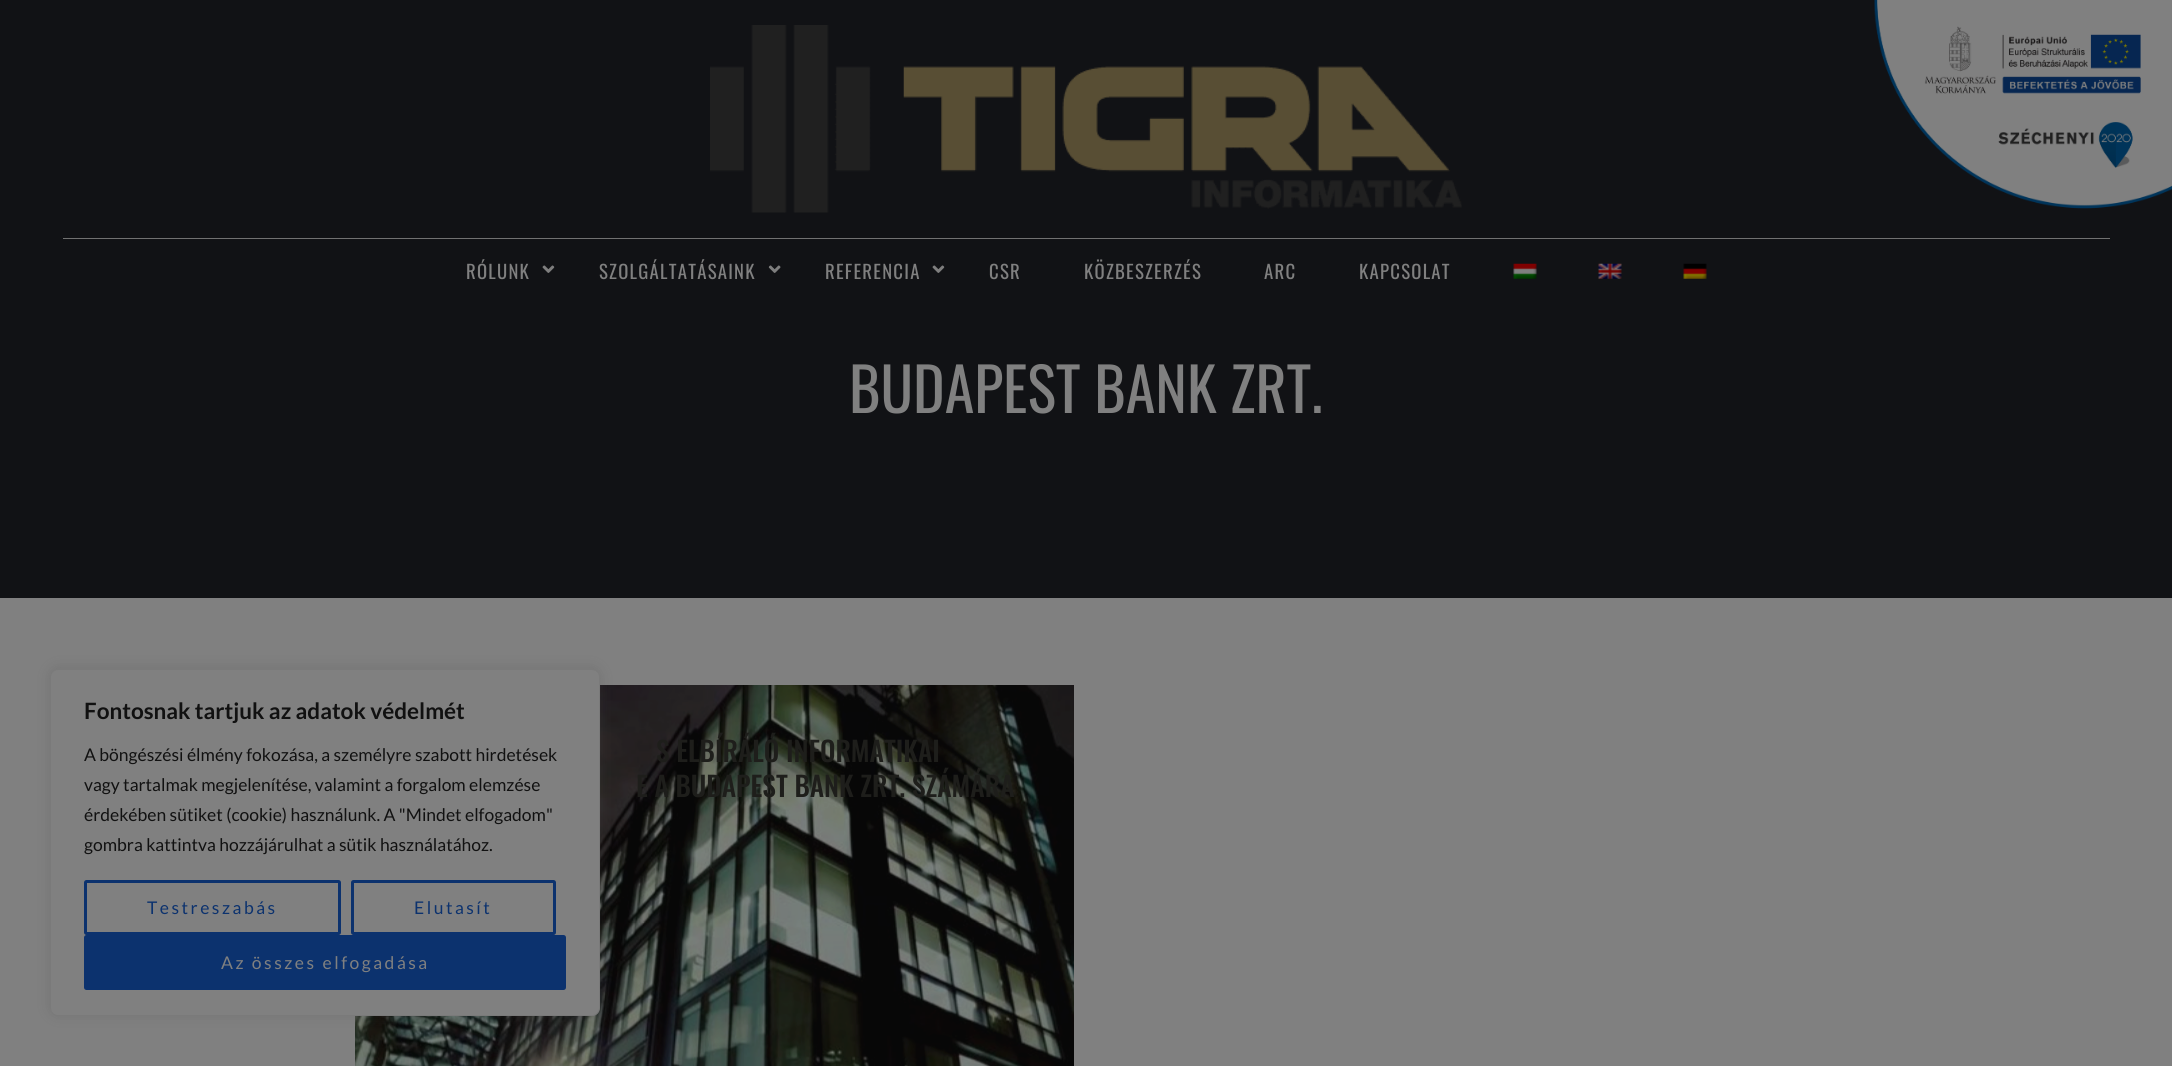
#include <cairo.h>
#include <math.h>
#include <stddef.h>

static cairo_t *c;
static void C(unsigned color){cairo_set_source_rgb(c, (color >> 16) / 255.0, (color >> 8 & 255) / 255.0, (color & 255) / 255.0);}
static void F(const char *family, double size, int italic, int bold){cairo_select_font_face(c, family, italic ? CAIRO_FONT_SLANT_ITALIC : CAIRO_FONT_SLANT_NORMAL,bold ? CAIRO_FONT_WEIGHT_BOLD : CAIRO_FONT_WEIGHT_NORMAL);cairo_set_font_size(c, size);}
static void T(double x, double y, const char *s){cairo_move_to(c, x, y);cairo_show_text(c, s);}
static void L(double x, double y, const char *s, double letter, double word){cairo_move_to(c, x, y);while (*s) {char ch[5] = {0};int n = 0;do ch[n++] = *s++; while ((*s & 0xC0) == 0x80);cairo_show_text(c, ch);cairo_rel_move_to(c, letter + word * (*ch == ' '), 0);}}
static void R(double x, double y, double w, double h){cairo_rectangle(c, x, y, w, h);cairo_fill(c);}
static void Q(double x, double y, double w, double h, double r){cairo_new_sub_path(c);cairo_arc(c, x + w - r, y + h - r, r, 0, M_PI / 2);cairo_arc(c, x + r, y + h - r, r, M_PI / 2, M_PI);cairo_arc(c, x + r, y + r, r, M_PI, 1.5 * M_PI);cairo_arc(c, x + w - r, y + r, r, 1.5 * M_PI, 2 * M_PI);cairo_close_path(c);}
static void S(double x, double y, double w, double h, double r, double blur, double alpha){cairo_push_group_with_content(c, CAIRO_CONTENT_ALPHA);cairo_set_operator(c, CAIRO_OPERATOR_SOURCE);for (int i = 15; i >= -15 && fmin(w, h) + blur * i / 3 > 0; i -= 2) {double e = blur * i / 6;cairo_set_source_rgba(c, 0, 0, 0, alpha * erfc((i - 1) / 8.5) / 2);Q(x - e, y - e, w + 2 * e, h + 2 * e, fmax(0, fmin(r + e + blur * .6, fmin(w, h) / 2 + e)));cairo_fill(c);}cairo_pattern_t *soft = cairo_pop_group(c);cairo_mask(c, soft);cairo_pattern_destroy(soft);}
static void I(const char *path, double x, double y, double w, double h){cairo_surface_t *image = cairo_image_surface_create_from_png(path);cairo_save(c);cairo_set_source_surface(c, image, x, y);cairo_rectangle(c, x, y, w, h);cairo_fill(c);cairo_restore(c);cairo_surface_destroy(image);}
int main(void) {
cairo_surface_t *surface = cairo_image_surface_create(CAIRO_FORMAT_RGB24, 2172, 1066);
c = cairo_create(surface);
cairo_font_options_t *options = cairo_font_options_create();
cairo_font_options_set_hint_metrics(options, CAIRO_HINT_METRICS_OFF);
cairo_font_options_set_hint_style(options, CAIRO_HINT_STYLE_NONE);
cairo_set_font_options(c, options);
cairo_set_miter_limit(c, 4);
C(0x808080);
cairo_paint(c);
C(0x111215);
R(0,0,2172,598);
I("1.png",1874,0,298,209);
C(0x717171);
R(63,238,2047,1);
I("2.png",710,25,752,188);
F("Oswald",18.75,0,0);
C(0x808080);
L(466,279,"RÓLUNK",1.25,0);
I("3.png",542,265,13,8);
L(599,279,"SZOLGÁLTATÁSAINK",1.25,0);
I("4.png",768,265,13,8);
L(825,279,"REFERENCIA",1.25,0);
I("3.png",932,265,13,8);
L(989,279,"CSR",1.25,0);
L(1084,279,"KÖZBESZERZÉS",1.25,0);
L(1264,279,"ARC",1.25,0);
L(1359,279,"KAPCSOLAT",1.25,0);
I("5.png",1513,263,24,16);
I("6.png",1598,263,24,16);
I("7.png",1683,263,24,16);
F("Oswald",60,0,0);
T(849,413,"BUDAPEST BANK ZRT.");
I("8.png",355,685,719,381);
F("Oswald Medium",27.5,0,0);
C(0x1e1e1b);
T(656,762,"S ELBÍRÁLÓ INFORMATIKAI");
T(636,797,"E A BUDAPEST BANK ZRT. SZÁMÁRA");
C(0x565656);
S(50,668,550,347,8,6,.3);
C(0x808080);
Q(50.5,669.5,549,346,7.5);
cairo_fill_preserve(c);
C(0x7a7a7a);
cairo_set_line_width(c,1);
cairo_stroke(c);
F("Lato",22.5,0,1);
C(0x111111);
T(84,719,"Fontosnak tartjuk az adatok védelmét");
F("Lato",17.5,0,0);
T(84,761,"A böngészési élmény fokozása, a személyre szabott hirdetések");
T(84,791,"vagy tartalmak megjelenítése, valamint a forgalom elemzése");
T(84,821,"érdekében sütiket (cookie) használunk. A \"Mindet elfogadom\"");
T(84,851,"gombra kattintva hozzájárulhat a sütik használatához.");
Q(85.5,881.5,254,52,1);
C(0x0c326e);
cairo_set_line_width(c,3);
cairo_stroke(c);
L(147,914,"Testreszabás",2.5,0);
Q(352.5,881.5,202,52,1);
cairo_stroke(c);
L(414,914,"Elutasít",2.5,0);
Q(85.5,936.5,479,52,1);
cairo_fill_preserve(c);
cairo_stroke(c);
C(0x808080);
L(221,969,"Az összes elfogadása",2.5,0);
cairo_surface_write_to_png(surface, "o.png");
cairo_font_options_destroy(options);
cairo_destroy(c);
cairo_surface_destroy(surface);
return 0;
}
